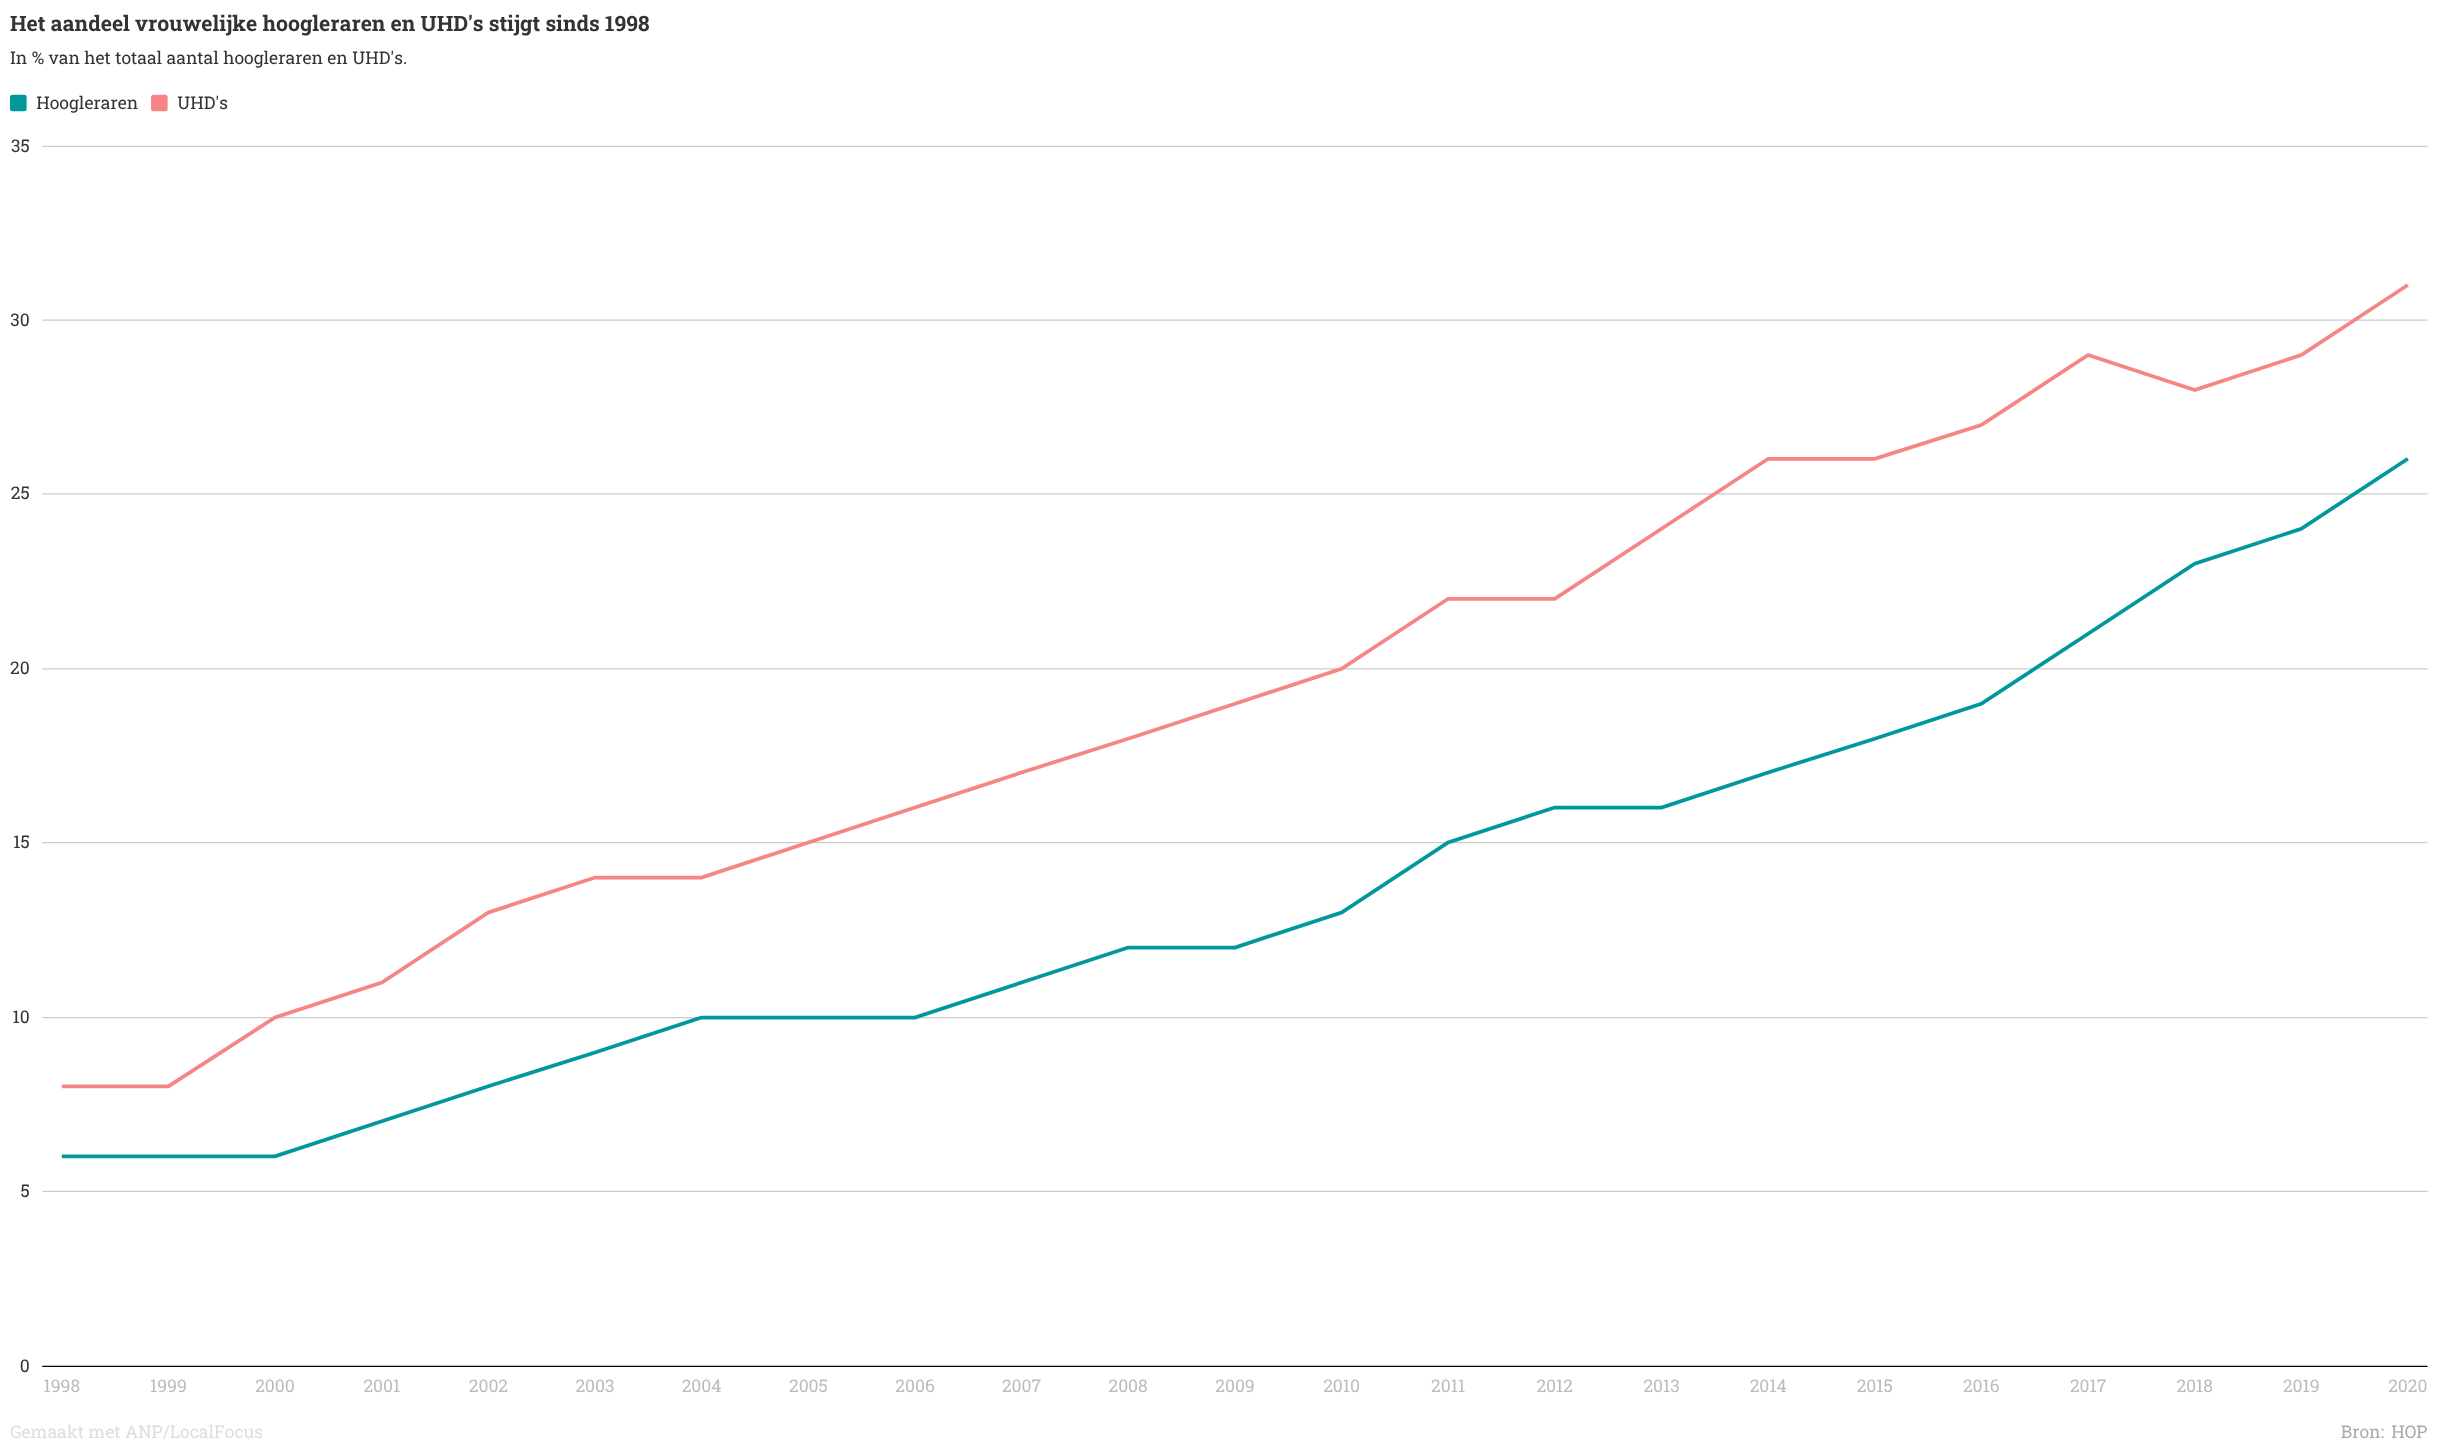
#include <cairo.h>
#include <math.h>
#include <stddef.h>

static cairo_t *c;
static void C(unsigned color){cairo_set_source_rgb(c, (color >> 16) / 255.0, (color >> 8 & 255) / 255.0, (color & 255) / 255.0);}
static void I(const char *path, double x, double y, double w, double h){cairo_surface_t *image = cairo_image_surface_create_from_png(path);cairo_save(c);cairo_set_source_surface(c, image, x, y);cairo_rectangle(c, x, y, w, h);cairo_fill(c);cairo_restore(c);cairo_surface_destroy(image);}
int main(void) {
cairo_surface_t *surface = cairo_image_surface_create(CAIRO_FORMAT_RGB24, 2437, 1450);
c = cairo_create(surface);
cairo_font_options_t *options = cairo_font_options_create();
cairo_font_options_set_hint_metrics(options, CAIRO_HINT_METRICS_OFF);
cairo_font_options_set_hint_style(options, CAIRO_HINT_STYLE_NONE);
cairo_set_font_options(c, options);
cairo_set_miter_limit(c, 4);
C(0xffffff);
cairo_paint(c);
I("1.png",10,14,2418,1425);
cairo_surface_write_to_png(surface, "o.png");
cairo_font_options_destroy(options);
cairo_destroy(c);
cairo_surface_destroy(surface);
return 0;
}
